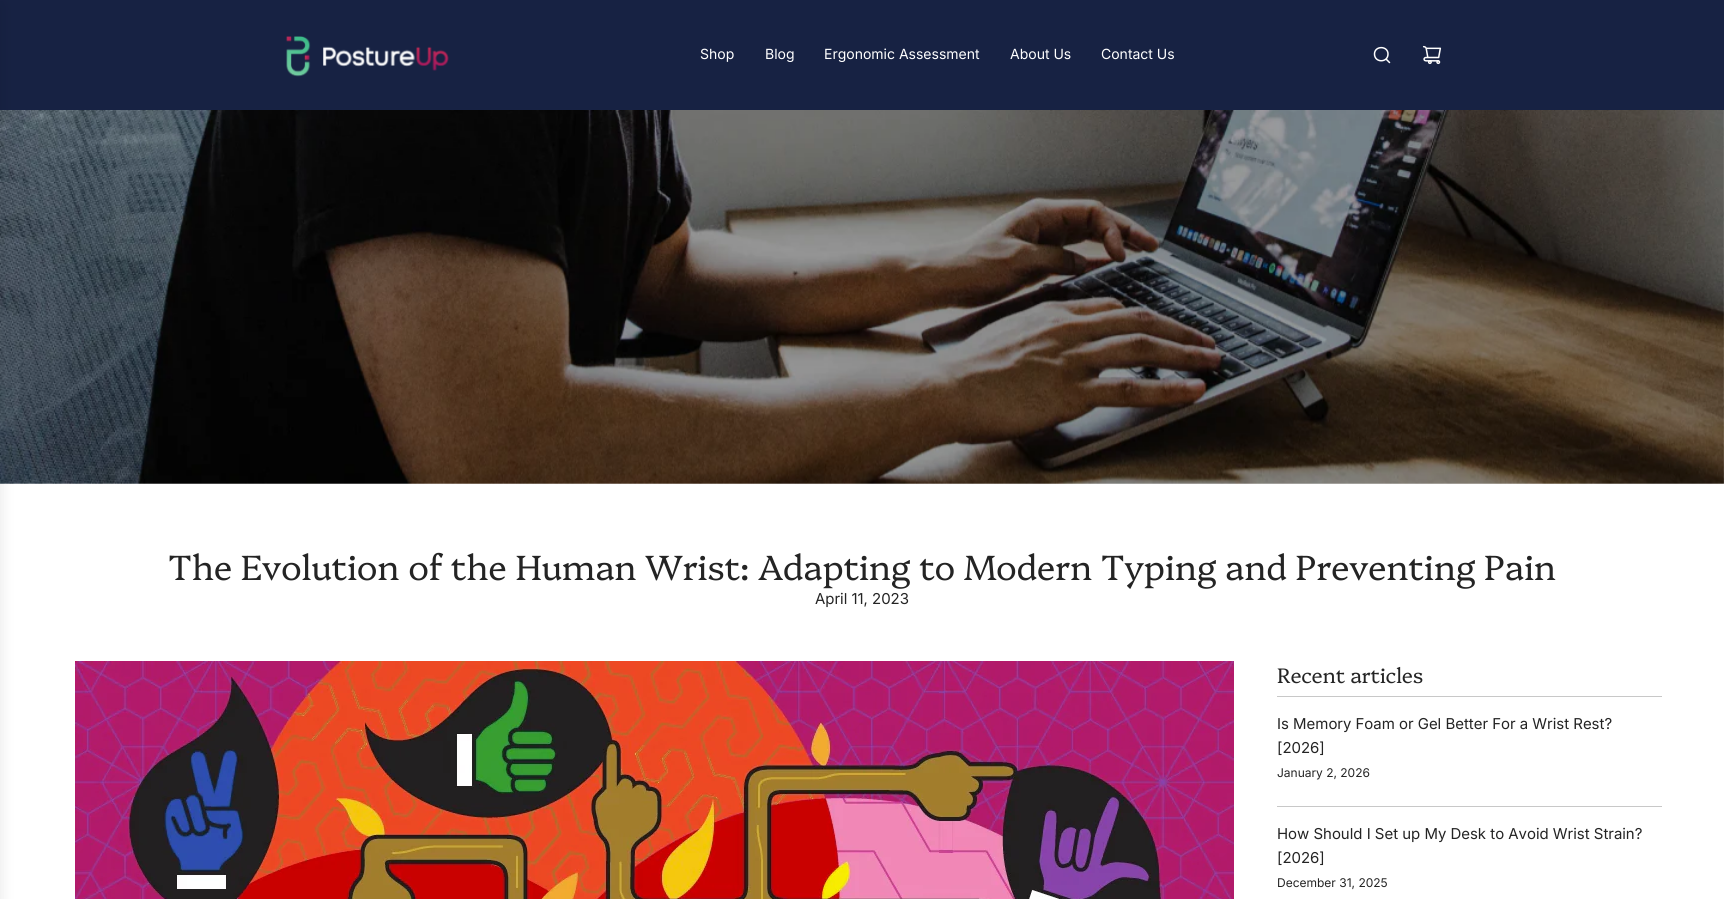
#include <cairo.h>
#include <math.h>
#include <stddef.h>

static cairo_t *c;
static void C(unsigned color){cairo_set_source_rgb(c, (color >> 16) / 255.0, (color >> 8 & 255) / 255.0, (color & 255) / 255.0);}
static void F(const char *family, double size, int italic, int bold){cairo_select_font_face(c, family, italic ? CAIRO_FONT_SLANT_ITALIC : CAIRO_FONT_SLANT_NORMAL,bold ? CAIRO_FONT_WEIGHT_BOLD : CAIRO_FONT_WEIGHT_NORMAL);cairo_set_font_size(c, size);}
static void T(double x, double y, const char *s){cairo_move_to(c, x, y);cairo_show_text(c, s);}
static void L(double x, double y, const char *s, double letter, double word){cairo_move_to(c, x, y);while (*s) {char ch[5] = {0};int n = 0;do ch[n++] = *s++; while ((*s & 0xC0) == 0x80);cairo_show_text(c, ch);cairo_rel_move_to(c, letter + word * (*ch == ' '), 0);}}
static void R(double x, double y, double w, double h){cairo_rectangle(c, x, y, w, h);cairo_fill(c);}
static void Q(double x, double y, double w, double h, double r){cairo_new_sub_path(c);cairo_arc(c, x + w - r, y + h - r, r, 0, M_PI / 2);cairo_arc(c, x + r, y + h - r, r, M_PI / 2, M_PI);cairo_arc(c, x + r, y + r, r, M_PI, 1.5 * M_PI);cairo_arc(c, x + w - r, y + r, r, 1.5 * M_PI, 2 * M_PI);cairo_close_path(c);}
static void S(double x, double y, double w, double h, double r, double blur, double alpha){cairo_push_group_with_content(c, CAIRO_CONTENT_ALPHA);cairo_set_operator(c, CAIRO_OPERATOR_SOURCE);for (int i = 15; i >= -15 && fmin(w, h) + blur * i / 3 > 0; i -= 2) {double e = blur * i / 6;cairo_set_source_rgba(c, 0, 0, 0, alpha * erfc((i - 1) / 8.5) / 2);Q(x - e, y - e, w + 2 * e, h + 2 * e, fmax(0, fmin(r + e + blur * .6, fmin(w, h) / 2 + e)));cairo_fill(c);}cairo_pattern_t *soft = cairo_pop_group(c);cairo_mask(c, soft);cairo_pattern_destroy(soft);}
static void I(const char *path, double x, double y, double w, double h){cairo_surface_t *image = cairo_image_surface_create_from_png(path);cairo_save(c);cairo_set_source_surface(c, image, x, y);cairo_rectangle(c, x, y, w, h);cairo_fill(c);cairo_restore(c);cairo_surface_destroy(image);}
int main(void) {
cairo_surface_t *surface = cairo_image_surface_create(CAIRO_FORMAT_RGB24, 1724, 899);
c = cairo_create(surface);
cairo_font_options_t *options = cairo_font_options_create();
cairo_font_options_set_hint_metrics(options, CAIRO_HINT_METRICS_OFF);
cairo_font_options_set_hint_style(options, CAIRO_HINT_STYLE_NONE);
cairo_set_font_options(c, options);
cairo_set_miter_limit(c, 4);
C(0xffffff);
cairo_paint(c);
C(0x172243);
R(0,0,1724,110);
I("3.png",0,110,1724,374);
C(0x000000);
S(-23,5,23,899,0,7.5,.1);
I("1.png",286,36,163,41);
F("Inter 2",14,0,0);
C(0xffffff);
T(700,59,"Shop");
T(765,59,"Blog");
T(824,59,"Ergonomic Assessment");
T(1010,59,"About Us");
T(1101,59,"Contact Us");
cairo_new_path(c);
cairo_move_to(c,1386,59);
cairo_line_to(c,1389.5,62.5);
cairo_move_to(c,1374.5,54);
cairo_curve_to(c,1374.5,63,1388,63,1388,54);
cairo_curve_to(c,1388,45.5,1374.5,45.5,1374.5,54);
cairo_close_path(c);
cairo_set_line_width(c,1.5);
cairo_set_line_cap(c,CAIRO_LINE_CAP_ROUND);
cairo_set_line_join(c,CAIRO_LINE_JOIN_ROUND);
cairo_stroke(c);
I("2.png",1422,45,20,20);
F("Platypi Light",35,0,0);
C(0x242424);
L(168,580,"The Evolution of the Human Wrist: Adapting to Modern Typing and Preventing Pain",-.35,0);
F("Inter",15,0,0);
T(815,604,"April 11, 2023");
I("4.png",75,661,1159,238);
F("Platypi Light",21,0,0);
L(1277,683,"Recent articles",-.25,0);
C(0xc8c8c8);
R(1277,696,385,1);
F("Inter",15,0,0);
C(0x242424);
T(1277,729,"Is Memory Foam or Gel Better For a Wrist Rest?");
T(1277,753,"[2026]");
F("Inter 2",12,0,0);
T(1277,777,"January 2, 2026");
C(0xc8c8c8);
R(1277,806,385,1);
F("Inter",15,0,0);
C(0x242424);
T(1277,839,"How Should I Set up My Desk to Avoid Wrist Strain?");
T(1277,863,"[2026]");
F("Inter 2",12,0,0);
T(1277,887,"December 31, 2025");
cairo_surface_write_to_png(surface, "o.png");
cairo_font_options_destroy(options);
cairo_destroy(c);
cairo_surface_destroy(surface);
return 0;
}
